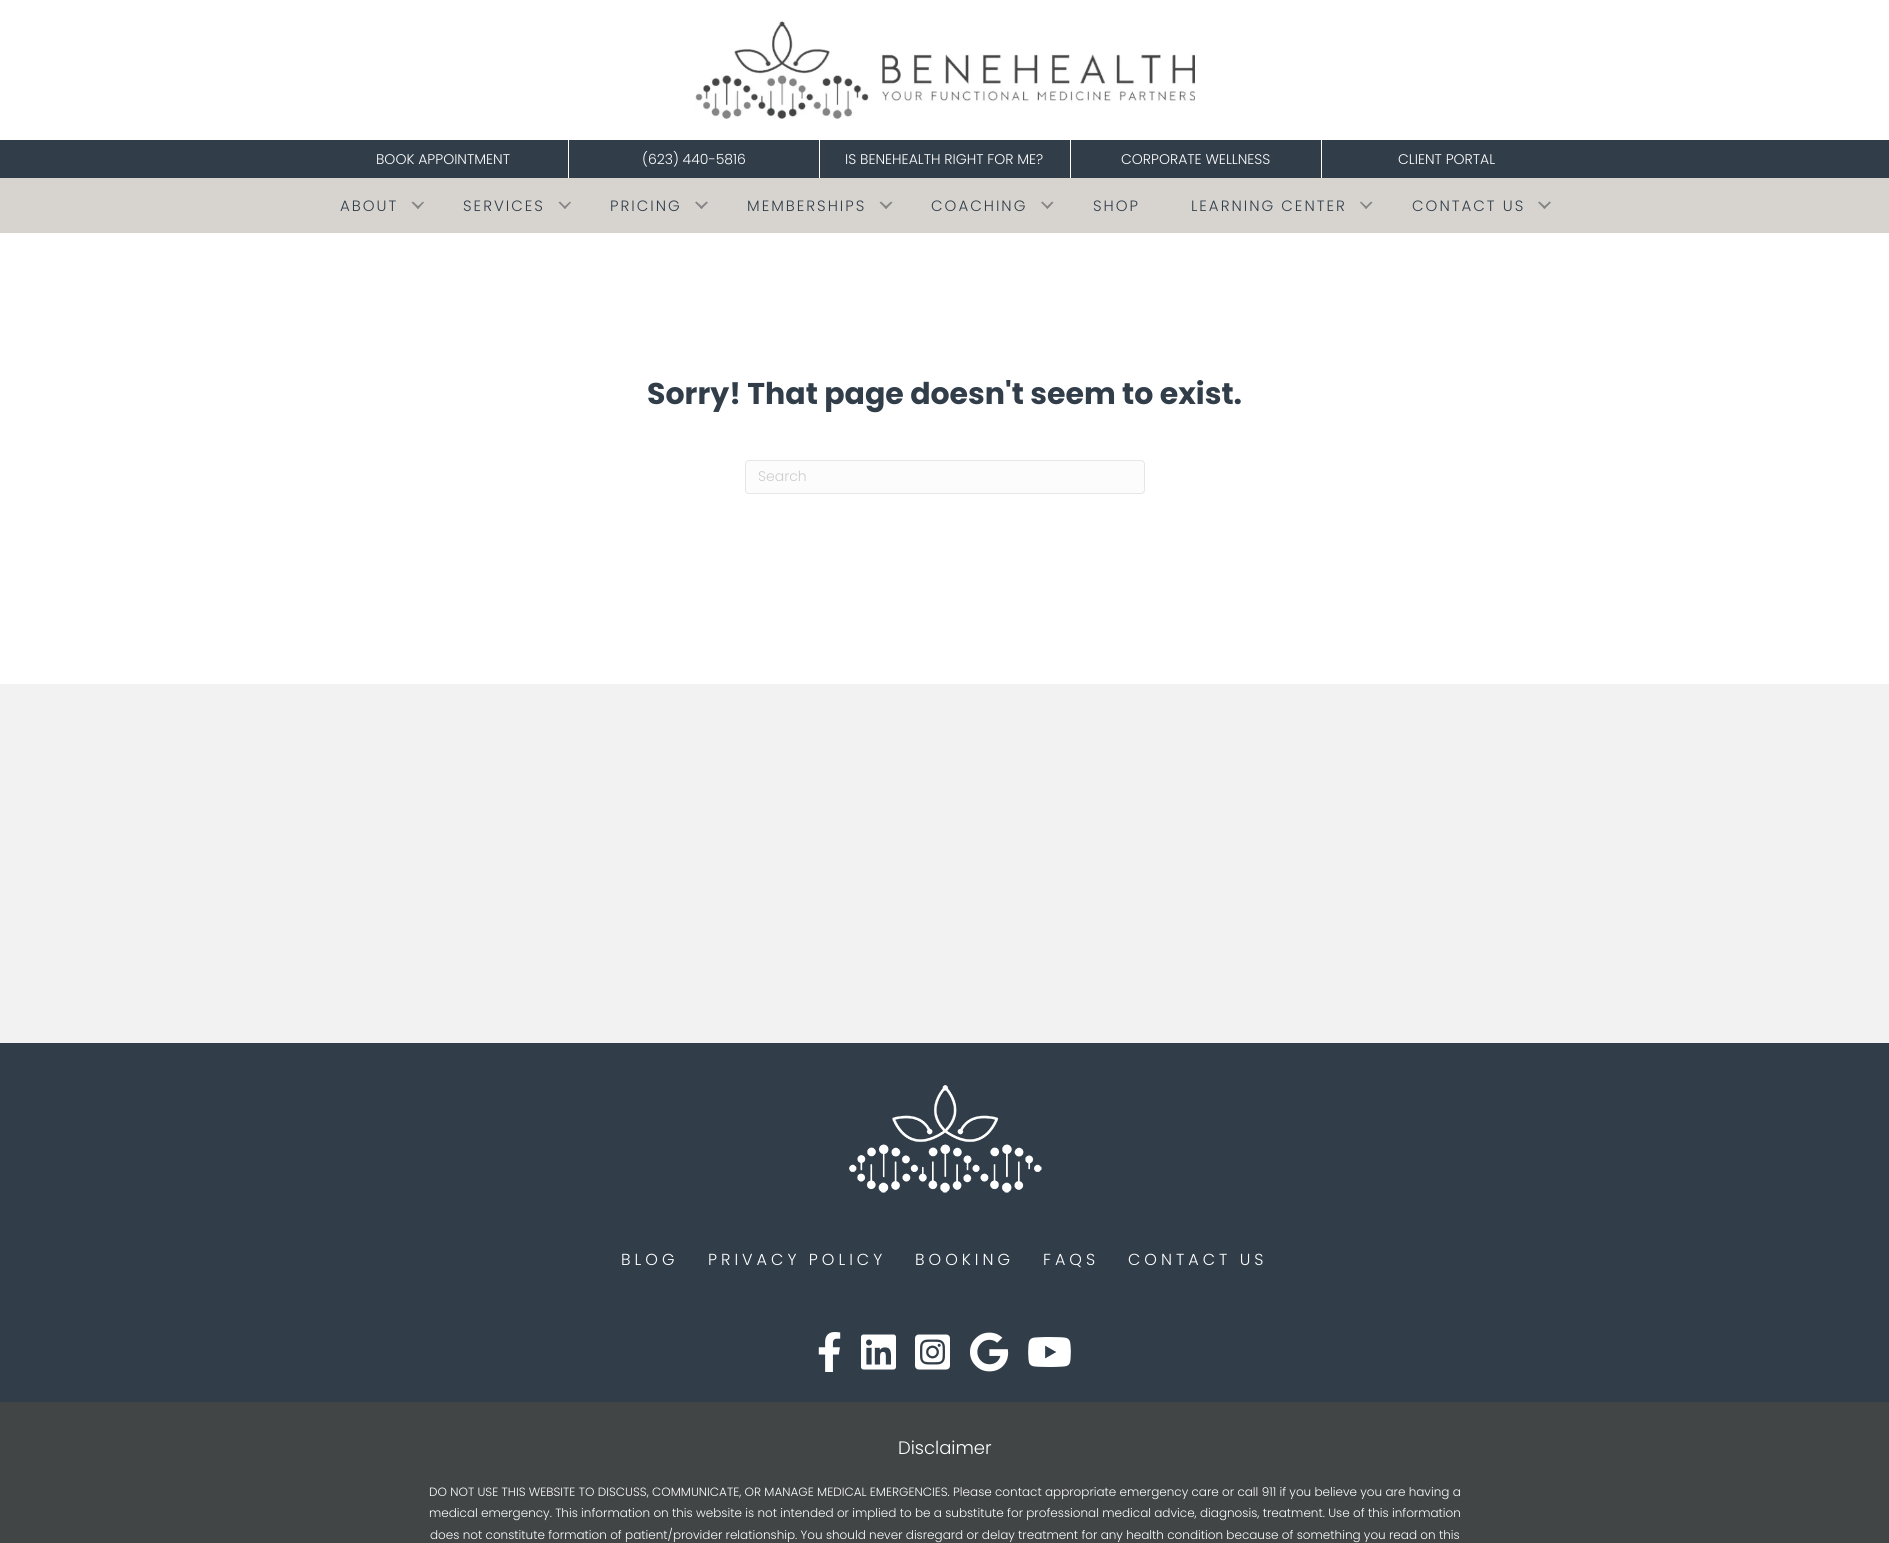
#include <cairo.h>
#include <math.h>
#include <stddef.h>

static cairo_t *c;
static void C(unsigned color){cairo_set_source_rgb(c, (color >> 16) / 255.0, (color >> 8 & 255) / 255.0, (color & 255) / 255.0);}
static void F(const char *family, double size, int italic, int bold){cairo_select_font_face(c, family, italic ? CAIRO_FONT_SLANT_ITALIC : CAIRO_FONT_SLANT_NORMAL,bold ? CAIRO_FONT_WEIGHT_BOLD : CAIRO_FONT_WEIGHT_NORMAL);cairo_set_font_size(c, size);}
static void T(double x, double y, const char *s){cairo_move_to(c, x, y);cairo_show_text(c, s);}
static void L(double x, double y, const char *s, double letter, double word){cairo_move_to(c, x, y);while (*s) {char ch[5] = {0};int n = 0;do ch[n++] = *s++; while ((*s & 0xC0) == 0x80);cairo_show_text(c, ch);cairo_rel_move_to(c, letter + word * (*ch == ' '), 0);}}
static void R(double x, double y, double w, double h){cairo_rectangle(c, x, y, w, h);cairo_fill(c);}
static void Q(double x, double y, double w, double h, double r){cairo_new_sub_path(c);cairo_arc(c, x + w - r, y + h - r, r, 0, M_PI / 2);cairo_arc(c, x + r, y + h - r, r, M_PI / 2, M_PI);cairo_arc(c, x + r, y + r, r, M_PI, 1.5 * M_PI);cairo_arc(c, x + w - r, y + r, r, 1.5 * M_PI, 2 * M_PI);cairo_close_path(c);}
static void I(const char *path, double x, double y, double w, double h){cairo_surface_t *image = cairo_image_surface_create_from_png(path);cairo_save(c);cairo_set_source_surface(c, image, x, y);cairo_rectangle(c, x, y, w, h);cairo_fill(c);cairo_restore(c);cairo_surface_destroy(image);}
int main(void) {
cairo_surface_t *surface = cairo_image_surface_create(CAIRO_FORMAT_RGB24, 1889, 1543);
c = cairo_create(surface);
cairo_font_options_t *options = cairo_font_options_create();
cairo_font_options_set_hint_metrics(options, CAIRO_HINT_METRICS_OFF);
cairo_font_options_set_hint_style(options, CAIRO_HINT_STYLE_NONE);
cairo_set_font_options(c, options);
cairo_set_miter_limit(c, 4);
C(0xf2f2f2);
cairo_paint(c);
C(0xffffff);
R(0,0,1889,140);
I("1.png",695,20,500,99);
C(0x313e4a);
R(0,140,1889,38);
C(0xffffff);
R(568,140,1,38);
F("Poppins Light",14,0,0);
T(376,164,"BOOK APPOINTMENT");
R(819,140,1,38);
T(642,164,"(623) 440-5816");
R(1070,140,1,38);
T(845,164,"IS BENEHEALTH RIGHT FOR ME?");
R(1321,140,1,38);
T(1121,164,"CORPORATE WELLNESS");
T(1398,164,"CLIENT PORTAL");
C(0xd7d4d0);
R(0,178,1889,55);
F("Poppins Light",15,0,0);
C(0x313e4a);
L(340,211,"ABOUT",2,0);
C(0x858585);
cairo_new_path(c);
cairo_move_to(c,423,201.5);
cairo_line_to(c,424,202.5);
cairo_line_to(c,418,209);
cairo_line_to(c,416.5,207.5);
cairo_close_path(c);
cairo_fill(c);
cairo_new_path(c);
cairo_move_to(c,413,201.5);
cairo_line_to(c,419.5,207.5);
cairo_line_to(c,418,209);
cairo_line_to(c,411.5,202.5);
cairo_close_path(c);
cairo_fill(c);
C(0x313e4a);
L(463,211,"SERVICES",2,0);
C(0x858585);
cairo_new_path(c);
cairo_move_to(c,570,201.5);
cairo_line_to(c,571,202.5);
cairo_line_to(c,565,209);
cairo_line_to(c,563.5,207.5);
cairo_close_path(c);
cairo_fill(c);
cairo_new_path(c);
cairo_move_to(c,560,201.5);
cairo_line_to(c,566,207.5);
cairo_line_to(c,565,209);
cairo_line_to(c,558.5,202.5);
cairo_close_path(c);
cairo_fill(c);
C(0x313e4a);
L(610,211,"PRICING",2,0);
C(0x858585);
cairo_new_path(c);
cairo_move_to(c,706.5,201.5);
cairo_line_to(c,708,202.5);
cairo_line_to(c,701.5,209);
cairo_line_to(c,700,207.5);
cairo_close_path(c);
cairo_fill(c);
cairo_new_path(c);
cairo_move_to(c,696.5,201.5);
cairo_line_to(c,703,207.5);
cairo_line_to(c,701.5,209);
cairo_line_to(c,695,202.5);
cairo_close_path(c);
cairo_fill(c);
C(0x313e4a);
L(747,211,"MEMBERSHIPS",2,0);
C(0x858585);
cairo_new_path(c);
cairo_move_to(c,891,201.5);
cairo_line_to(c,892.5,202.5);
cairo_line_to(c,886,209);
cairo_line_to(c,884.5,207.5);
cairo_close_path(c);
cairo_fill(c);
cairo_new_path(c);
cairo_move_to(c,881,201.5);
cairo_line_to(c,887.5,207.5);
cairo_line_to(c,886,209);
cairo_line_to(c,879.5,202.5);
cairo_close_path(c);
cairo_fill(c);
C(0x313e4a);
L(931,211,"COACHING",2,0);
C(0x858585);
cairo_new_path(c);
cairo_move_to(c,1052,201.5);
cairo_line_to(c,1053.5,202.5);
cairo_line_to(c,1047.5,209);
cairo_line_to(c,1046,207.5);
cairo_close_path(c);
cairo_fill(c);
cairo_new_path(c);
cairo_move_to(c,1042.5,201.5);
cairo_line_to(c,1048.5,207.5);
cairo_line_to(c,1047.5,209);
cairo_line_to(c,1041,202.5);
cairo_close_path(c);
cairo_fill(c);
C(0x313e4a);
L(1093,211,"SHOP",2,0);
L(1191,211,"LEARNING CENTER",2,0);
C(0x858585);
cairo_new_path(c);
cairo_move_to(c,1371,201.5);
cairo_line_to(c,1372.5,202.5);
cairo_line_to(c,1366,209);
cairo_line_to(c,1365,207.5);
cairo_close_path(c);
cairo_fill(c);
cairo_new_path(c);
cairo_move_to(c,1361,201.5);
cairo_line_to(c,1367.5,207.5);
cairo_line_to(c,1366,209);
cairo_line_to(c,1360,202.5);
cairo_close_path(c);
cairo_fill(c);
C(0x313e4a);
L(1412,211,"CONTACT US",2,0);
C(0x858585);
cairo_new_path(c);
cairo_move_to(c,1549.5,201.5);
cairo_line_to(c,1551,202.5);
cairo_line_to(c,1544.5,209);
cairo_line_to(c,1543,207.5);
cairo_close_path(c);
cairo_fill(c);
cairo_new_path(c);
cairo_move_to(c,1539.5,201.5);
cairo_line_to(c,1546,207.5);
cairo_line_to(c,1544.5,209);
cairo_line_to(c,1538,202.5);
cairo_close_path(c);
cairo_fill(c);
C(0xffffff);
R(0,233,1889,451);
F("Poppins",30,0,1);
C(0x313e4a);
T(647,404,"Sorry! That page doesn't seem to exist.");
C(0xfcfcfc);
Q(745.5,460.5,399,33,3.5);
cairo_fill_preserve(c);
C(0xe6e6e6);
cairo_set_line_width(c,1);
cairo_stroke(c);
F("Poppins Light",14,0,0);
C(0xcccccc);
T(758,481,"Search");
C(0x313e4a);
R(0,1043,1889,359);
I("2.png",849,1085,193,108);
F("Poppins Light",16,0,0);
C(0xffffff);
L(621,1265,"BLOG",4,0);
L(708,1265,"PRIVACY POLICY",4,0);
L(915,1265,"BOOKING",4,0);
L(1043,1265,"FAQS",4,0);
L(1128,1265,"CONTACT US",4,0);
I("3.png",818,1332,23,40);
I("4.png",861,1334,35,36);
I("5.png",915,1334,35,36);
I("6.png",970,1332,39,40);
I("7.png",1028,1337,43,30);
C(0x414545);
R(0,1402,1889,141);
F("Poppins Light",18,0,0);
C(0xffffff);
T(898,1454,"Disclaimer");
F("Poppins Light",12,0,0);
T(429,1496,"DO NOT USE THIS WEBSITE TO DISCUSS, COMMUNICATE, OR MANAGE MEDICAL EMERGENCIES. Please contact appropriate emergency care or call 911 if you believe you are having a");
T(429,1517,"medical emergency. This information on this website is not intended or implied to be a substitute for professional medical advice, diagnosis, treatment. Use of this information");
T(430,1539,"does not constitute formation of patient/provider relationship. You should never disregard or delay treatment for any health condition because of something you read on this");
cairo_surface_write_to_png(surface, "o.png");
cairo_font_options_destroy(options);
cairo_destroy(c);
cairo_surface_destroy(surface);
return 0;
}
